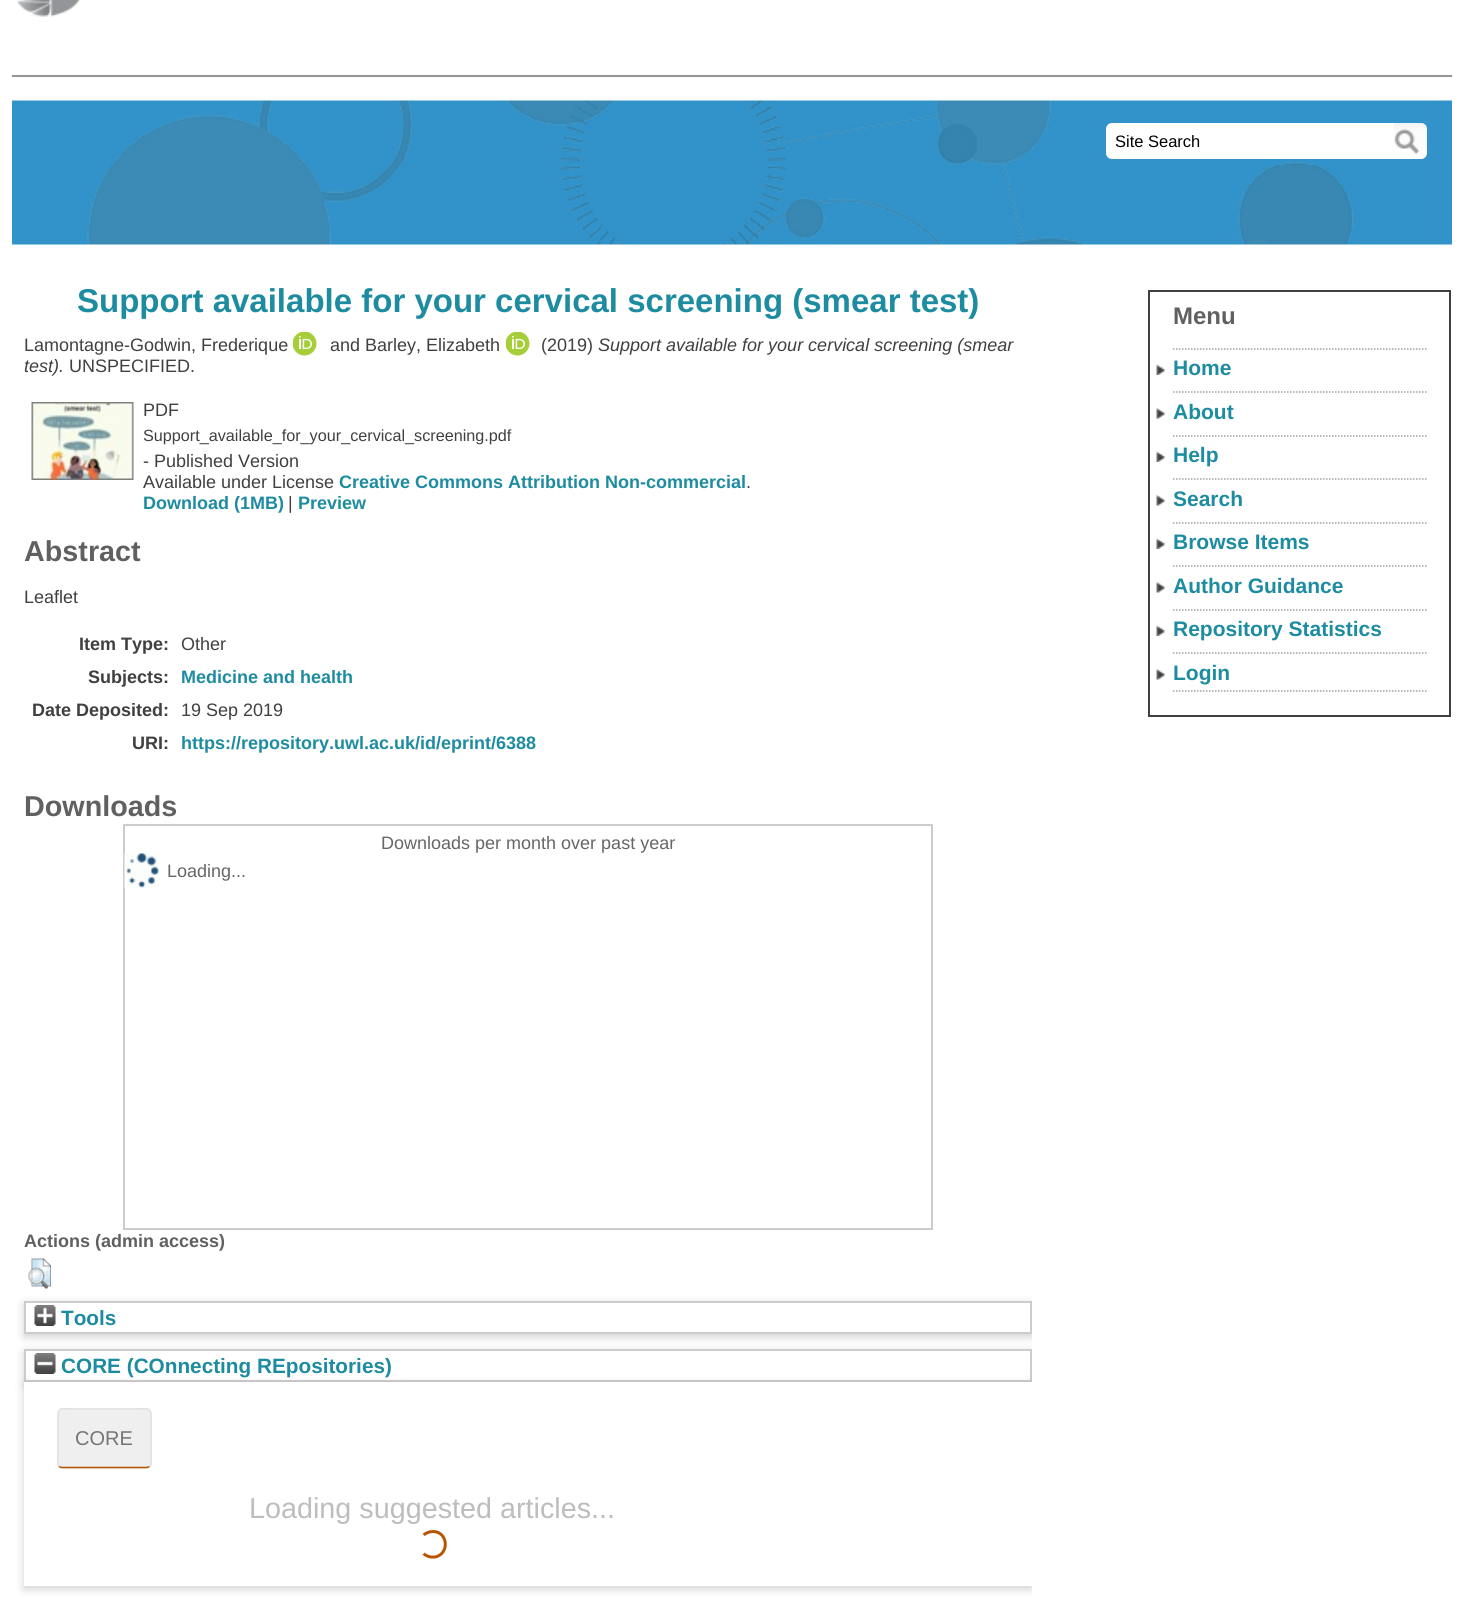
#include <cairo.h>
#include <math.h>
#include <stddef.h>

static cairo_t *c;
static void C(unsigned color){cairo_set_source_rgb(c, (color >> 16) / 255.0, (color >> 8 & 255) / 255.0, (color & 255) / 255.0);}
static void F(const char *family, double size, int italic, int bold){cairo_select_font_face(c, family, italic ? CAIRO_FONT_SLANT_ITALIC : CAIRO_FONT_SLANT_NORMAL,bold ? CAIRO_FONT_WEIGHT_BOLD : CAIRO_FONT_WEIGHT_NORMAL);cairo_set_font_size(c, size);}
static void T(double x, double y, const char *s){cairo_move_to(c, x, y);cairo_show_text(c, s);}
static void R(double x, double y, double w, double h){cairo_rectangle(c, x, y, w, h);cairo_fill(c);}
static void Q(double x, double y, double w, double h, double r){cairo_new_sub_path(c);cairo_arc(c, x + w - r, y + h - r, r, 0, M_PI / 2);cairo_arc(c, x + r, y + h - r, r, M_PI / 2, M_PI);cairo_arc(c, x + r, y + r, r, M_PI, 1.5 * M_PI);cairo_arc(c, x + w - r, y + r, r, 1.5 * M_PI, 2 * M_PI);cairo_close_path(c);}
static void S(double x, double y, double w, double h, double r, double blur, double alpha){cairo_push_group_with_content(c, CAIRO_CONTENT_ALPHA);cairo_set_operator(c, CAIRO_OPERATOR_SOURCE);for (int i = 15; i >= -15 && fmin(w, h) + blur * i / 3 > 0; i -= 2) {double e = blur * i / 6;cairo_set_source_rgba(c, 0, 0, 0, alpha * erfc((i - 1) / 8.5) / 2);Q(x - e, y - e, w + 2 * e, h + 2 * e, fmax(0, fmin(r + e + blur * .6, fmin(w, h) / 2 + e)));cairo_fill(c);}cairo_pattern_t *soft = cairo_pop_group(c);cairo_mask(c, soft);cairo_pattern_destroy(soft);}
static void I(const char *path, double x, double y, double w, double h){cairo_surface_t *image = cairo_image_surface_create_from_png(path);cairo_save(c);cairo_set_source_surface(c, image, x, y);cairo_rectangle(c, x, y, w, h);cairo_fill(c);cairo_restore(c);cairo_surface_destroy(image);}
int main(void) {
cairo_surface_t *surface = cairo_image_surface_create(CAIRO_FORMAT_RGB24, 1463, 1619);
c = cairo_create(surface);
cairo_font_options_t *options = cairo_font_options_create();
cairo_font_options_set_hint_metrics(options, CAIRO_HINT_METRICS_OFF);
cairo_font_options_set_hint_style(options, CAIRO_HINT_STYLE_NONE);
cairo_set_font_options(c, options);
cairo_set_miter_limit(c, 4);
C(0xffffff);
cairo_paint(c);
I("1.png",12,100,1440,145);
C(0x939598);
R(12,75,1440,2);
I("2.png",17,0,63,17);
C(0xffffff);
Q(1106,123,321,36,6);
cairo_fill(c);
I("3.png",1393,123,34,36);
F("Liberation Sans",16.5,0,0);
C(0x000000);
T(1115,147,"Site Search");
F("Liberation Sans",33,0,1);
C(0x1e8ca0);
T(77,312,"Support available for your cervical screening (smear test)");
F("Liberation Sans",18,0,0);
C(0x404041);
T(24,351,"Lamontagne-Godwin, Frederique");
I("4.png",293,332,24,24);
T(330,351,"and Barley, Elizabeth");
I("4.png",506,332,24,24);
T(541,351,"(2019)");
F("Liberation Sans",18,1,0);
T(598,351,"Support available for your cervical screening (smear");
T(24,372,"test).");
F("Liberation Sans",18,0,0);
T(69,372,"UNSPECIFIED.");
I("5.png",31,402,103,78);
T(143,416,"PDF");
F("Liberation Sans",16.2,0,0);
T(143,441,"Support_available_for_your_cervical_screening.pdf");
F("Liberation Sans",18,0,0);
T(143,467,"- Published Version");
T(143,488,"Available under License");
F("Liberation Sans",18,0,1);
C(0x1e8ca0);
T(339,488,"Creative Commons Attribution Non-commercial");
F("Liberation Sans",18,0,0);
C(0x404041);
T(746,488,".");
F("Liberation Sans",18,0,1);
C(0x1e8ca0);
T(143,509,"Download (1MB)");
F("Liberation Sans",18,0,0);
C(0x404041);
T(288,509,"|");
F("Liberation Sans",18,0,1);
C(0x1e8ca0);
T(298,509,"Preview");
F("Liberation Sans",28.75,0,1);
C(0x606060);
T(24,561,"Abstract");
F("Liberation Sans",18,0,0);
C(0x404041);
T(24,603,"Leaflet");
F("Liberation Sans",18,0,1);
T(79,650,"Item Type:");
F("Liberation Sans",18,0,0);
T(181,650,"Other");
F("Liberation Sans",18,0,1);
T(88,683,"Subjects:");
C(0x1e8ca0);
T(181,683,"Medicine and health");
C(0x404041);
T(32,716,"Date Deposited:");
F("Liberation Sans",18,0,0);
T(181,716,"19 Sep 2019");
F("Liberation Sans",18,0,1);
T(132,749,"URI:");
C(0x1e8ca0);
T(181,749,"https://repository.uwl.ac.uk/id/eprint/6388");
F("Liberation Sans",28.75,0,1);
C(0x606060);
T(24,816,"Downloads");
cairo_rectangle(c,124,825,808,404);
C(0xcccccc);
cairo_stroke(c);
F("Liberation Sans",18,0,0);
C(0x666666);
T(381,849,"Downloads per month over past year");
I("6.png",124,853,35,35);
T(167,877,"Loading...");
F("Liberation Sans",18,0,1);
C(0x606060);
T(24,1247,"Actions (admin access)");
I("7.png",28,1258,23,31);
cairo_save(c);
cairo_rectangle(c,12,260,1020,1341);
cairo_clip(c);
C(0x646464);
S(24,1304,1008,33,0,4.5,.3);
cairo_restore(c);
C(0xffffff);
cairo_rectangle(c,25,1302,1006,31);
cairo_fill_preserve(c);
C(0xcccccc);
cairo_stroke(c);
I("8.png",34,1305,22,21);
F("Liberation Sans",20.75,0,1);
C(0x1e8ca0);
T(61,1325,"Tools");
cairo_save(c);
cairo_rectangle(c,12,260,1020,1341);
cairo_clip(c);
C(0x646464);
S(24,1352,1008,33,0,4.5,.3);
cairo_restore(c);
C(0xffffff);
cairo_rectangle(c,25,1350,1006,31);
cairo_fill_preserve(c);
C(0xcccccc);
cairo_stroke(c);
cairo_save(c);
cairo_rectangle(c,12,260,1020,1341);
cairo_clip(c);
C(0x646464);
S(24,1385,1008,204,0,4.5,.3);
cairo_restore(c);
I("9.png",34,1353,22,21);
C(0x1e8ca0);
T(61,1373,"CORE (COnnecting REpositories)");
C(0xffffff);
R(24,1382,1008,204);
C(0xefefef);
Q(57,1409,95,60,5);
cairo_fill(c);
cairo_new_path(c);
cairo_move_to(c,149.5,1466.5);
cairo_line_to(c,147,1467.5);
cairo_line_to(c,61.5,1467.5);
cairo_line_to(c,59,1466.5);
C(0xb75400);
cairo_set_line_width(c,1.5);
cairo_stroke(c);
cairo_new_path(c);
cairo_move_to(c,59,1466.5);
cairo_curve_to(c,56.5,1464,58,1457,58,1455.5);
cairo_line_to(c,58,1421.5);
cairo_curve_to(c,58,1405.5,58,1409,76,1409);
cairo_line_to(c,132.5,1409);
cairo_curve_to(c,150.5,1409,151,1405.5,151,1421.5);
cairo_line_to(c,151,1455.5);
cairo_curve_to(c,151,1457,152,1464,149.5,1466.5);
C(0xe0e0e0);
cairo_stroke(c);
F("Liberation Sans",20,0,0);
C(0x757575);
T(75,1445,"CORE");
F("Liberation Sans",28.75,0,0);
C(0xbdbdbd);
T(249,1518,"Loading suggested articles...");
cairo_new_path(c);
cairo_move_to(c,423.5,1535);
cairo_curve_to(c,426,1533,429.5,1531.5,433,1531.5);
cairo_curve_to(c,448,1531.5,450,1554,435,1557);
cairo_curve_to(c,431,1557.5,426.5,1556.5,423.5,1553.5);
C(0xb75400);
cairo_set_line_width(c,3);
cairo_stroke(c);
cairo_new_path(c);
cairo_move_to(c,423.5,1553.5);
cairo_curve_to(c,419,1548.5,419,1540,423.5,1535);
C(0xffffff);
cairo_stroke(c);
cairo_rectangle(c,1149,291,301,425);
C(0x404040);
cairo_set_line_width(c,2);
cairo_stroke(c);
F("Liberation Sans",24,0,1);
C(0x606060);
T(1173,324,"Menu");
I("10.png",1156,364,10,11);
cairo_new_path(c);
cairo_move_to(c,1173,349);
cairo_line_to(c,1428,349);
C(0x9f9fa0);
cairo_set_line_width(c,1.5);
cairo_set_dash(c,(double[]){1.5,1.5},2,0);
cairo_stroke(c);
F("Liberation Sans",21,0,1);
C(0x1e8ca0);
T(1173,375,"Home");
I("11.png",1156,408,10,11);
cairo_new_path(c);
cairo_move_to(c,1173,392);
cairo_line_to(c,1428,392);
C(0x9f9fa0);
cairo_stroke(c);
C(0x1e8ca0);
T(1173,419,"About");
I("10.png",1156,451,10,11);
cairo_new_path(c);
cairo_move_to(c,1173,436);
cairo_line_to(c,1428,436);
C(0x9f9fa0);
cairo_stroke(c);
C(0x1e8ca0);
T(1173,462,"Help");
I("11.png",1156,495,10,11);
cairo_new_path(c);
cairo_move_to(c,1173,479);
cairo_line_to(c,1428,479);
C(0x9f9fa0);
cairo_stroke(c);
C(0x1e8ca0);
T(1173,506,"Search");
I("10.png",1156,538,10,11);
cairo_new_path(c);
cairo_move_to(c,1173,523);
cairo_line_to(c,1428,523);
C(0x9f9fa0);
cairo_stroke(c);
C(0x1e8ca0);
T(1173,549,"Browse Items");
I("11.png",1156,582,10,11);
cairo_new_path(c);
cairo_move_to(c,1173,566);
cairo_line_to(c,1428,566);
C(0x9f9fa0);
cairo_stroke(c);
C(0x1e8ca0);
T(1173,593,"Author Guidance");
I("10.png",1156,625,10,11);
cairo_new_path(c);
cairo_move_to(c,1173,610);
cairo_line_to(c,1428,610);
C(0x9f9fa0);
cairo_stroke(c);
C(0x1e8ca0);
T(1173,636,"Repository Statistics");
I("11.png",1156,669,10,11);
cairo_new_path(c);
cairo_move_to(c,1173,653);
cairo_line_to(c,1428,653);
C(0x9f9fa0);
cairo_stroke(c);
cairo_new_path(c);
cairo_move_to(c,1173,691);
cairo_line_to(c,1428,691);
cairo_stroke(c);
C(0x1e8ca0);
T(1173,680,"Login");
cairo_surface_write_to_png(surface, "o.png");
cairo_font_options_destroy(options);
cairo_destroy(c);
cairo_surface_destroy(surface);
return 0;
}
